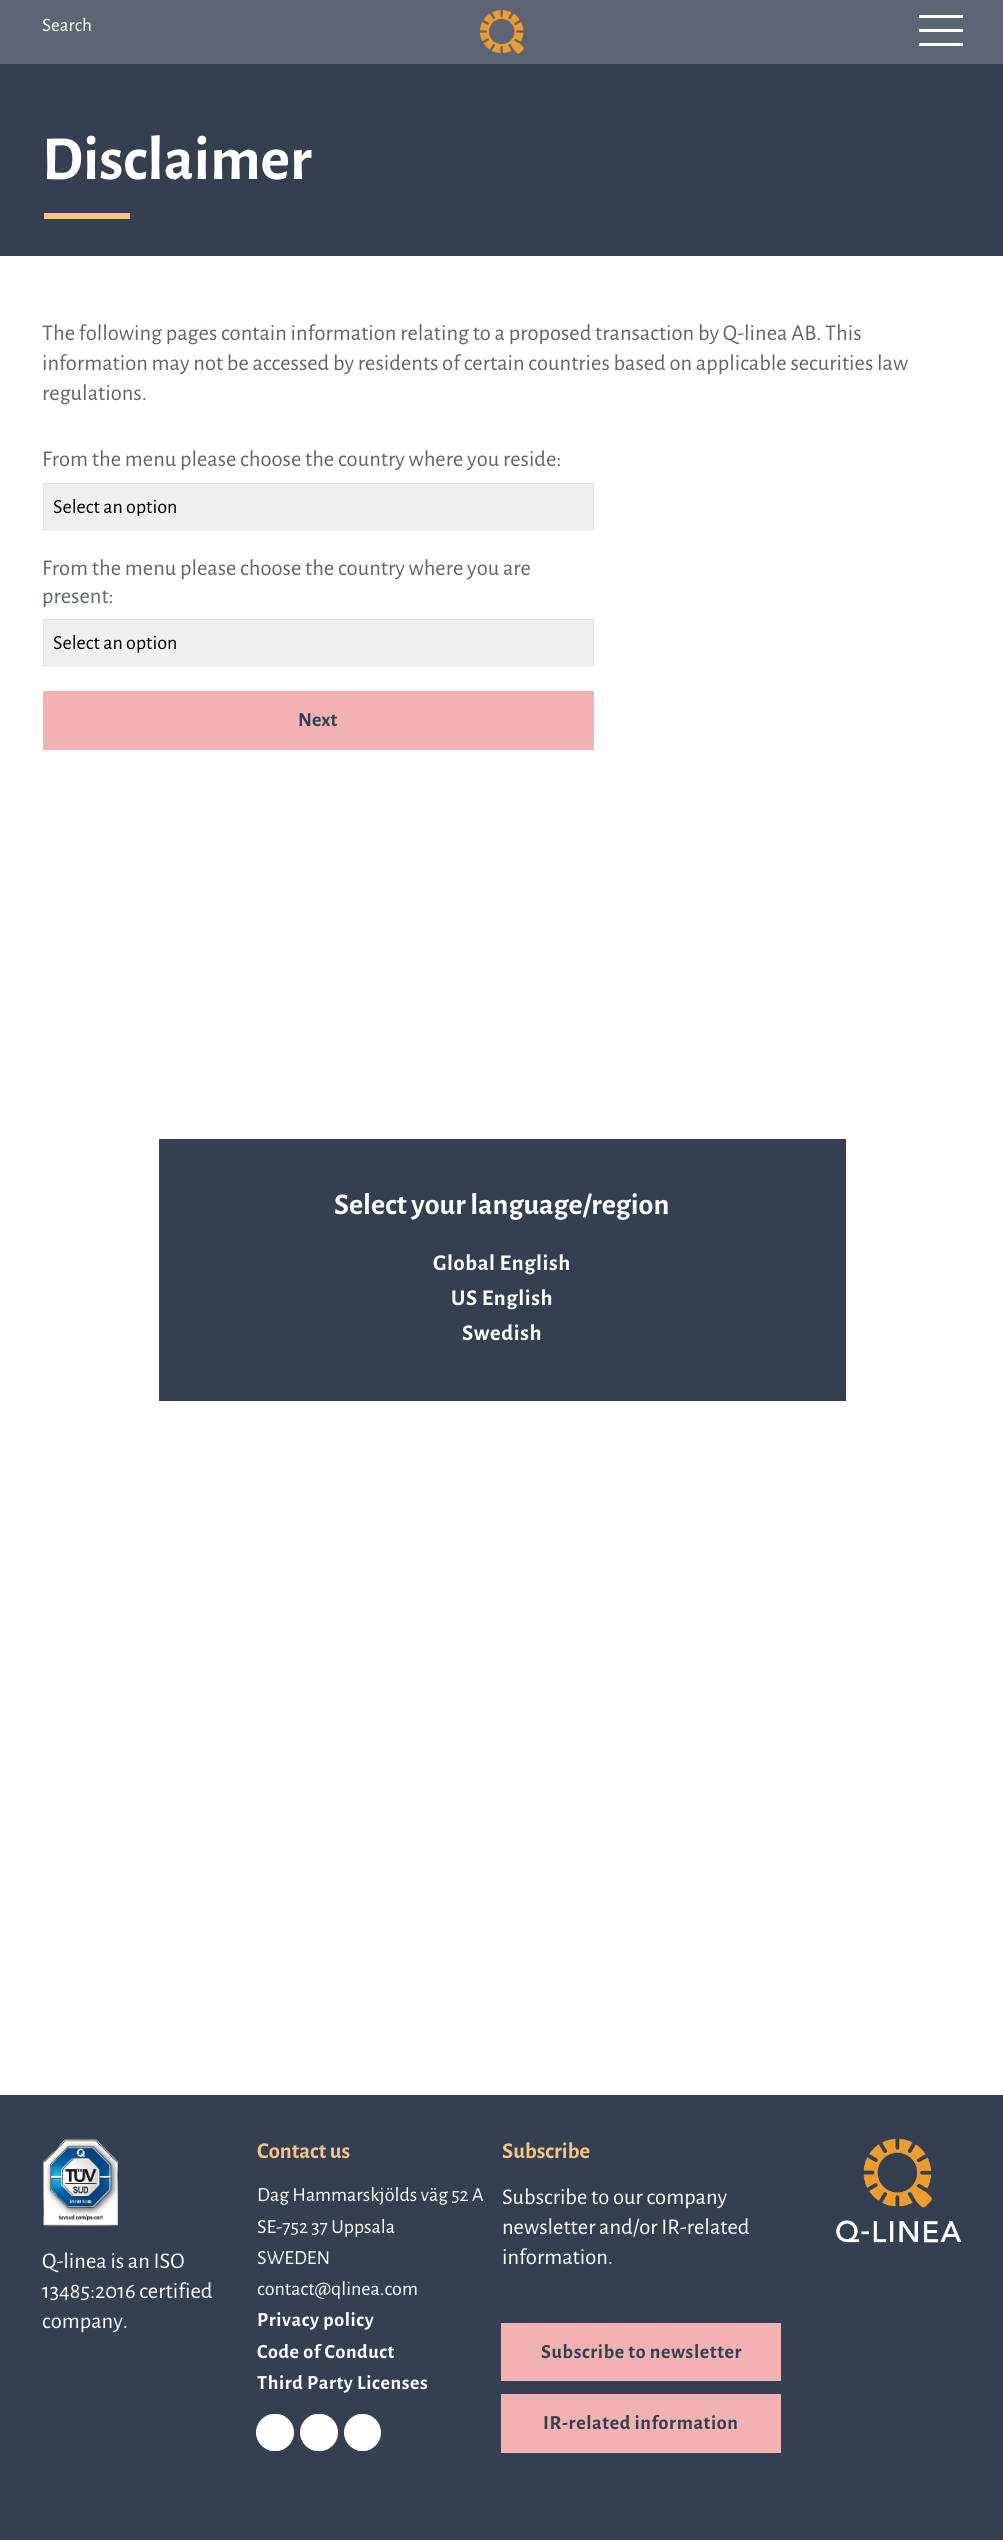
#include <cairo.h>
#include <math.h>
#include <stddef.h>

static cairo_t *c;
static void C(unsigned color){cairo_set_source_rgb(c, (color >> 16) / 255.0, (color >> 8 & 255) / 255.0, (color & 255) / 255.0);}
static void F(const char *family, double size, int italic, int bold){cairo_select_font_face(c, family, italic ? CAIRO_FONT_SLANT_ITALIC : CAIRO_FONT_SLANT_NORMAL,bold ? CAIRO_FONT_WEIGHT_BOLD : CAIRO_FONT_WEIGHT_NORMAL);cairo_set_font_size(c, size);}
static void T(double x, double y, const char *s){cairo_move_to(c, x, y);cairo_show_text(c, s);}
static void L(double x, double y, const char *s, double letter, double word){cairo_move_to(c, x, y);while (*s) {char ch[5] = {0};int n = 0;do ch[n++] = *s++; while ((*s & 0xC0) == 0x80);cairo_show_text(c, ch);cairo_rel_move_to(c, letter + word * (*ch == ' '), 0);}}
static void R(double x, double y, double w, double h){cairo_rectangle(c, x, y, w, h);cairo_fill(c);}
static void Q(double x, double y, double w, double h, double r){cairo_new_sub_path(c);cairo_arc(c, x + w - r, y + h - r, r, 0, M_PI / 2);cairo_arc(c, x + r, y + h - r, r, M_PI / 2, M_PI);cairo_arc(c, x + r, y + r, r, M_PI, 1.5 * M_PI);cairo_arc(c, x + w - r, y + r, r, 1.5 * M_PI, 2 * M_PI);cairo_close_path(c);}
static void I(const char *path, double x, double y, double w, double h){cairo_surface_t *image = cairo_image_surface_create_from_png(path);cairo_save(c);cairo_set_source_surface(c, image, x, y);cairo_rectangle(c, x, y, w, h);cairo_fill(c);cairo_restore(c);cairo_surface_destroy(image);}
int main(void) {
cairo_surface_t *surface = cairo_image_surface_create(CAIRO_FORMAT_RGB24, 1003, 2540);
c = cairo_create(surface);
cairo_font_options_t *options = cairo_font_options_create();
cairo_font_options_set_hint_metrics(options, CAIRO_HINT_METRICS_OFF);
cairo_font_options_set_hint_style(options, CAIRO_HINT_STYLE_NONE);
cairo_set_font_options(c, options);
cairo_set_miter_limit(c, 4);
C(0xffffff);
cairo_paint(c);
C(0x5d6575);
R(0,0,1003,64);
F("Alegreya Sans",19,0,0);
C(0xffffff);
T(42,31,"Search");
I("1.png",480,10,44,44);
R(919,15,44,3);
R(919,29,44,3);
R(919,43,44,3);
C(0x343f52);
R(0,64,1003,192);
F("Alegreya Sans",62.5,0,1);
C(0xffffff);
T(42,179,"Disclaimer");
C(0xf5c482);
R(44,213,86,6);
F("Alegreya Sans",22.5,0,0);
C(0x5d6575);
T(42,340,"The following pages contain information relating to a proposed transaction by Q-linea AB. This");
T(42,370,"information may not be accessed by residents of certain countries based on applicable securities law");
T(42,400,"regulations.");
T(42,466,"From the menu please choose the country where you reside:");
C(0xefefef);
cairo_rectangle(c,43.5,483.5,550,46);
cairo_fill_preserve(c);
C(0xe0e0e0);
cairo_set_line_width(c,1);
cairo_stroke(c);
cairo_save(c);
cairo_rectangle(c,54,496,520,20);
cairo_clip(c);
F("Alegreya Sans",20,0,0);
C(0x000000);
T(53,513,"Select an option");
cairo_restore(c);
C(0x5d6575);
T(42,575,"From the menu please choose the country where you are");
T(42,603,"present:");
C(0xefefef);
cairo_rectangle(c,43.5,619.5,550,46);
cairo_fill_preserve(c);
C(0xe0e0e0);
cairo_stroke(c);
F("Alegreya Sans",20,0,0);
C(0x000000);
T(53,649,"Select an option");
C(0xf1b2b1);
R(43,691,551,59);
F("Alegreya Sans",20,0,1);
C(0x343f52);
T(298,726,"Next");
R(159,1139,687,262);
F("Alegreya Sans",30,0,1);
C(0xffffff);
T(334,1214,"Select your language/region");
F("Alegreya Sans",22.5,0,1);
L(433,1270,"Global English",.6,0);
L(451,1305,"US English",.6,0);
L(462,1340,"Swedish",.6,0);
C(0x343f52);
R(0,2095,1003,445);
I("2.png",42,2138,77,89);
F("Alegreya Sans",22.5,0,0);
C(0xffffff);
T(42,2268,"Q-linea is an ISO");
T(42,2298,"13485:2016 certified");
T(42,2328,"company.");
F("Alegreya Sans",22.5,0,1);
C(0xf5c482);
T(257,2158,"Contact us");
F("Alegreya Sans",20,0,0);
C(0xffffff);
T(257,2201,"Dag Hammarskjölds väg 52 A");
T(257,2233,"SE-752 37 Uppsala");
T(257,2264,"SWEDEN");
T(257,2295,"contact@qlinea.com");
F("Alegreya Sans",20,0,1);
L(257,2326,"Privacy policy",.6,0);
L(257,2358,"Code of Conduct",.6,0);
L(257,2389,"Third Party Licenses",.6,0);
Q(256,2414,38,37,18.5);
cairo_fill(c);
cairo_save(c);
Q(256,2414,38,37,18.5);
cairo_clip(c);
R(266,2414,18,37);
cairo_restore(c);
Q(300,2414,38,37,18.5);
cairo_fill(c);
cairo_save(c);
Q(300,2414,38,37,18.5);
cairo_clip(c);
R(310,2414,18,37);
cairo_restore(c);
cairo_arc(c,362.5,2432.5,18.5,0,2 * M_PI);
cairo_fill(c);
cairo_save(c);
Q(344,2414,37,37,18.5);
cairo_clip(c);
R(354,2414,17,37);
cairo_restore(c);
F("Alegreya Sans",22.5,0,1);
C(0xf5c482);
T(502,2158,"Subscribe");
F("Alegreya Sans",22.5,0,0);
C(0xffffff);
T(502,2204,"Subscribe to our company");
T(502,2234,"newsletter and/or IR-related");
T(502,2264,"information.");
C(0xf1b2b1);
R(501,2323,280,58);
F("Alegreya Sans",20,0,1);
C(0x343f52);
L(541,2358,"Subscribe to newsletter",.6,0);
C(0xf1b2b1);
R(501,2394,280,59);
C(0x343f52);
L(543,2429,"IR-related information",.6,0);
I("3.png",836,2138,126,105);
cairo_surface_write_to_png(surface, "o.png");
cairo_font_options_destroy(options);
cairo_destroy(c);
cairo_surface_destroy(surface);
return 0;
}
